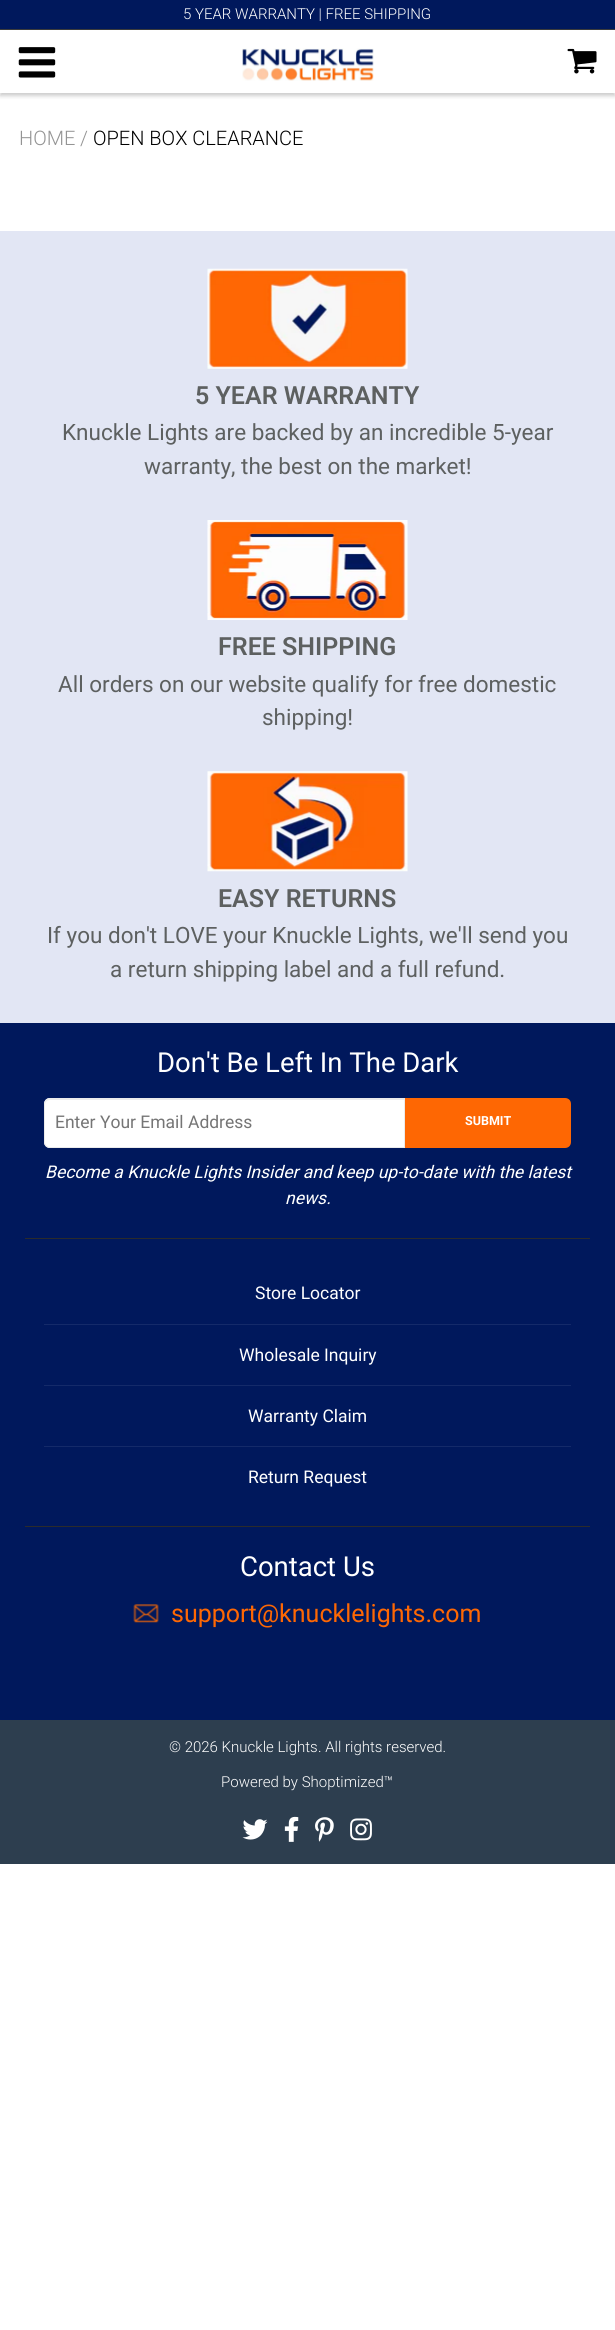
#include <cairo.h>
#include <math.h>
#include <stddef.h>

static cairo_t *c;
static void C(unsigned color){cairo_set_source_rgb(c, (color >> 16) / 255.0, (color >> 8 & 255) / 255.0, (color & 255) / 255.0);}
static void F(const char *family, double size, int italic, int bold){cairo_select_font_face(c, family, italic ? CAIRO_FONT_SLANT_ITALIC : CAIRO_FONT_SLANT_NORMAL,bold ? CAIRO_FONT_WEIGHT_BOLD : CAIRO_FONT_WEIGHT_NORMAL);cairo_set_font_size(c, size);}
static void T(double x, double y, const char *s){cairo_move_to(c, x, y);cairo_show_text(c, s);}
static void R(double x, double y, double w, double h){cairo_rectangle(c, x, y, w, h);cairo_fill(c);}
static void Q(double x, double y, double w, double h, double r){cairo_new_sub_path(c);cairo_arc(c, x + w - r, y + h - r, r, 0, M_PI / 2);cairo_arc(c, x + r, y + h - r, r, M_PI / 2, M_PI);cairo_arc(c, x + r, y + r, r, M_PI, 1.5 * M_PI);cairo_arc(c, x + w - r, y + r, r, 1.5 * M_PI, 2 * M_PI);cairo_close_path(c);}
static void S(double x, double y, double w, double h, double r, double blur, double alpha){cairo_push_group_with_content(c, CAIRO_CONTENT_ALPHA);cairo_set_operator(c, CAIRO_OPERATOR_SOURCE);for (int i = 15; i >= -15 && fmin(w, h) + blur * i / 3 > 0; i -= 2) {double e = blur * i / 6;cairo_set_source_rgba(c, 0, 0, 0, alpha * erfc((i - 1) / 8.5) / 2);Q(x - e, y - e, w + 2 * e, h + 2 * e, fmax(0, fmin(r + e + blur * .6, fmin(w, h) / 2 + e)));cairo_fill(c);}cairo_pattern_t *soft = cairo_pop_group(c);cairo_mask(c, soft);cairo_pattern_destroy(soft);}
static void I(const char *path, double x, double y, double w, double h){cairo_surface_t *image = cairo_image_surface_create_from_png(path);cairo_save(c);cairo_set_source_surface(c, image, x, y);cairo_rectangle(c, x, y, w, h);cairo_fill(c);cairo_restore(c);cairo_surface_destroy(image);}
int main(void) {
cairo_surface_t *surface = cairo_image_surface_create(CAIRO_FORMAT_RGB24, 615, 2330);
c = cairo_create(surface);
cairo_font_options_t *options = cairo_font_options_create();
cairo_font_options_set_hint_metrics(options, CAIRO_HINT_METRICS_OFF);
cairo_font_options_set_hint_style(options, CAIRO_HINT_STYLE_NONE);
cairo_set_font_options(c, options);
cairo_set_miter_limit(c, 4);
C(0xffffff);
cairo_paint(c);
C(0x000000);
S(0,4,615,92,0,2,.2);
C(0xffffff);
R(0,30,615,63);
C(0x00185c);
R(0,0,615,29);
C(0x3b3b3b);
R(0,29,615,1);
F("Roboto Light",15,0,0);
C(0xffffff);
T(183,19,"5 YEAR WARRANTY | FREE SHIPPING");
I("1.png",18,47,38,31);
I("2.png",242,48,132,33);
I("3.png",567,48,30,26);
F("Roboto Light",20,0,0);
C(0x949494);
T(19,145,"HOME");
T(80,145,"/");
C(0x000000);
T(93,145,"OPEN BOX CLEARANCE");
C(0xe2e6f4);
R(0,231,615,792);
I("4.png",207,268,201,101);
F("Roboto SemiBold",25,0,0);
C(0x5d6060);
T(195,404,"5 YEAR WARRANTY");
F("Roboto",22.5,0,0);
T(62,440,"Knuckle Lights are backed by an incredible 5-year");
T(144,474,"warranty, the best on the market!");
I("5.png",207,520,201,100);
F("Roboto SemiBold",25,0,0);
T(218,655,"FREE SHIPPING");
F("Roboto",22.5,0,0);
T(58,692,"All orders on our website qualify for free domestic");
T(262,725,"shipping!");
I("6.png",207,771,201,101);
F("Roboto SemiBold",25,0,0);
T(218,907,"EASY RETURNS");
F("Roboto",22.5,0,0);
T(47,943,"If you don't LOVE your Knuckle Lights, we'll send you");
T(110,977,"a return shipping label and a full refund.");
C(0x00185c);
R(0,1023,615,697);
C(0x2b2b2b);
R(25,1238,565,1);
F("Roboto",27.5,0,0);
C(0xffffff);
T(157,1072,"Don't Be Left In The Dark");
cairo_new_path(c);
cairo_move_to(c,50,1098);
cairo_line_to(c,405,1098);
cairo_line_to(c,405,1148);
cairo_line_to(c,50,1148);
cairo_curve_to(c,46.5,1148,44,1145.5,44,1142);
cairo_line_to(c,44,1104);
cairo_curve_to(c,44,1100.5,46.5,1098,50,1098);
cairo_close_path(c);
cairo_fill(c);
C(0xececec);
cairo_new_path(c);
cairo_move_to(c,50,1100);
cairo_line_to(c,404,1100);
cairo_line_to(c,404,1099);
cairo_line_to(c,50,1099);
cairo_curve_to(c,47,1099,45,1101,45,1104);
cairo_line_to(c,45,1105);
cairo_curve_to(c,45,1102,47,1100,50,1100);
cairo_close_path(c);
cairo_fill(c);
cairo_new_path(c);
cairo_move_to(c,50,1098.5);
cairo_line_to(c,404.5,1098.5);
cairo_line_to(c,404.5,1147.5);
cairo_line_to(c,50,1147.5);
cairo_curve_to(c,47,1147.5,44.5,1145,44.5,1142);
cairo_line_to(c,44.5,1104);
cairo_curve_to(c,44.5,1101,47,1098.5,50,1098.5);
cairo_close_path(c);
C(0xebebeb);
cairo_set_line_width(c,1);
cairo_stroke(c);
F("Roboto",17.5,0,0);
C(0x757575);
T(55,1128,"Enter Your Email Address");
C(0xfe6703);
cairo_new_path(c);
cairo_move_to(c,405,1098);
cairo_line_to(c,565,1098);
cairo_curve_to(c,568.5,1098,571,1100.5,571,1104);
cairo_line_to(c,571,1142);
cairo_curve_to(c,571,1145.5,568.5,1148,565,1148);
cairo_line_to(c,405,1148);
cairo_close_path(c);
cairo_fill(c);
F("Roboto",12.5,0,1);
C(0xffffff);
T(465,1125,"SUBMIT");
F("Roboto",17.5,1,0);
T(45,1178,"Become a Knuckle Lights Insider and keep up-to-date with the latest");
T(285,1204,"news.");
C(0x2b2b2b);
R(25,1526,565,1);
C(0x142a69);
R(44,1324,527,1);
F("Roboto",17.5,0,0);
C(0xffffff);
T(255,1299,"Store Locator");
C(0x142a69);
R(44,1385,527,1);
C(0xffffff);
T(239,1361,"Wholesale Inquiry");
C(0x142a69);
R(44,1446,527,1);
C(0xffffff);
T(248,1422,"Warranty Claim");
T(248,1483,"Return Request");
F("Roboto",27.5,0,0);
T(240,1576,"Contact Us");
I("7.png",133,1604,26,19);
F("Roboto",25,0,0);
C(0xfe6703);
T(171,1622,"support@knucklelights.com");
C(0x2d3e4f);
R(0,1720,615,144);
F("Roboto Light",15,0,0);
C(0xffffff);
T(169,1752,"© 2026 Knuckle Lights");
T(318,1752,". All rights reserved.");
T(221,1787,"Powered by Shoptimized™");
I("8.png",242,1819,26,21);
I("9.png",284,1816,15,26);
I("10.png",315,1817,19,25);
I("11.png",350,1818,22,23);
cairo_surface_write_to_png(surface, "o.png");
cairo_font_options_destroy(options);
cairo_destroy(c);
cairo_surface_destroy(surface);
return 0;
}
